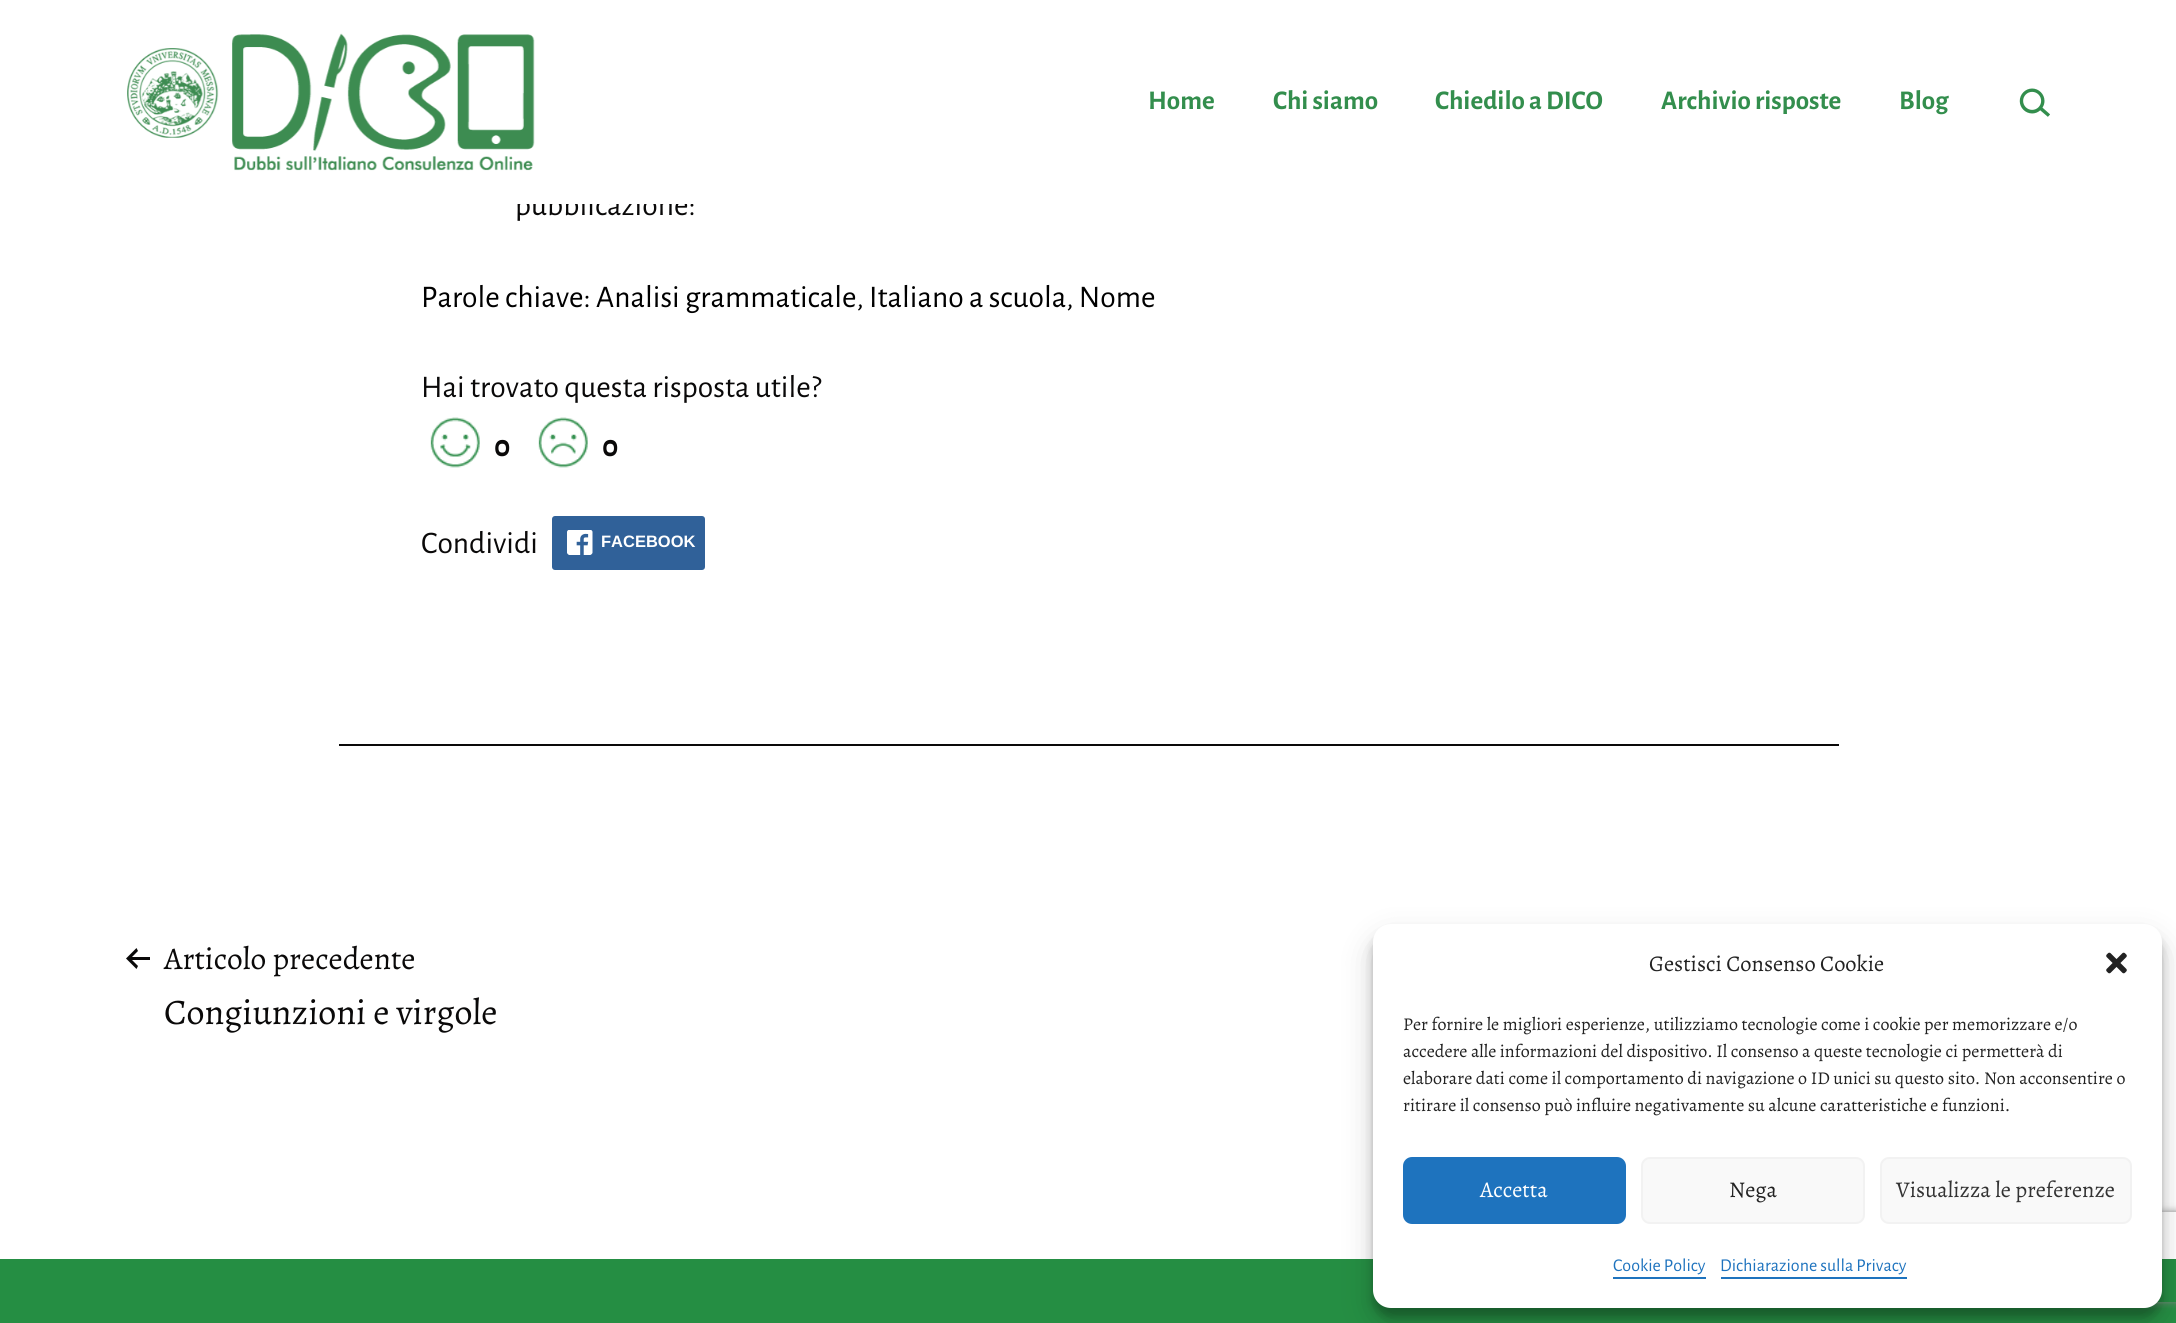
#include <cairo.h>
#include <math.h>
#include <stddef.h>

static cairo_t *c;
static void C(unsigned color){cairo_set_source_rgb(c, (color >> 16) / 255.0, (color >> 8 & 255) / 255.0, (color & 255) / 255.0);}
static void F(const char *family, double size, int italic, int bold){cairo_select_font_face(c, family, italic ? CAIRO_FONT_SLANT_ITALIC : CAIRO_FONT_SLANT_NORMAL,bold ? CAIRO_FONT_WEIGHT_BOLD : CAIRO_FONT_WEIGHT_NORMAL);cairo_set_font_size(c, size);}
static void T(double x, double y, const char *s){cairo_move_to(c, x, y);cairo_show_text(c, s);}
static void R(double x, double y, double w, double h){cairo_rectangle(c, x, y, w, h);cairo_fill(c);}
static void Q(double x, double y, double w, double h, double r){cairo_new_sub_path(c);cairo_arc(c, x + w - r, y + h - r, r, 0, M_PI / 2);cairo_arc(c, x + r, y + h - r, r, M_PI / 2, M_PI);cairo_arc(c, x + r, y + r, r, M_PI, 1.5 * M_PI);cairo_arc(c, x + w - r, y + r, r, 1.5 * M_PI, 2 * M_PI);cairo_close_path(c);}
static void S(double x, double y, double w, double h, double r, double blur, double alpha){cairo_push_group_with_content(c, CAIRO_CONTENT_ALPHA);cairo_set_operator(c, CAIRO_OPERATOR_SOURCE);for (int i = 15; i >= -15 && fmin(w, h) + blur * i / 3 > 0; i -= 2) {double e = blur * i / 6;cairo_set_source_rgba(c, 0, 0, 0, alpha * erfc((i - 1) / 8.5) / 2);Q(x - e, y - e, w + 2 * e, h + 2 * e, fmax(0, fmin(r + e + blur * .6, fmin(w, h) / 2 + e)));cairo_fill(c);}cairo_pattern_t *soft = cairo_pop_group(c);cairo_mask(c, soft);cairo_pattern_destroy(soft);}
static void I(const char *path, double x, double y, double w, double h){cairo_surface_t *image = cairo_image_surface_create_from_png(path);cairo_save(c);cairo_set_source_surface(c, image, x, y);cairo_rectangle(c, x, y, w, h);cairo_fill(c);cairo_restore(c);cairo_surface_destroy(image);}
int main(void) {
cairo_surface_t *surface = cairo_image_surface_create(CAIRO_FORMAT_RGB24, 2176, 1323);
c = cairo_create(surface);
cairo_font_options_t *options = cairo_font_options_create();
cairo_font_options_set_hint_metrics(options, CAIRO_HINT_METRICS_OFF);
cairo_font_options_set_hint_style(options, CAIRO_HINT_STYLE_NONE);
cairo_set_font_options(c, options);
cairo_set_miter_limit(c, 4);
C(0xffffff);
cairo_paint(c);
F("Alegreya Sans",31.5,0,0);
C(0x0a0909);
T(515,215,"pubblicazione:");
C(0xffffff);
R(517,192,176,12);
I("1.png",127,33,408,138);
F("Alegreya Sans",27,0,1);
C(0x338e4d);
T(1148,109,"Home");
T(1273,109,"Chi siamo");
T(1435,109,"Chiedilo a DICO");
T(1661,109,"Archivio risposte");
T(1899,109,"Blog");
I("2.png",2019,88,31,29);
F("Alegreya Sans",31.5,0,0);
C(0x000000);
T(421,307,"Parole chiave: Analisi grammaticale, Italiano a scuola, Nome");
C(0x0a0909);
T(421,397,"Hai trovato questa risposta utile?");
I("3.png",430,417,50,51);
F("Alegreya Sans",31.5,0,1);
T(494,456,"0");
I("4.png",538,417,50,51);
T(602,456,"0");
F("Alegreya Sans",31.5,0,0);
T(421,553,"Condividi");
C(0x306199);
Q(552,516,153,54,3);
cairo_fill(c);
I("5.png",567,530,26,25);
F("Liberation Sans",16.5,0,1);
C(0xffffff);
T(601,547,"FACEBOOK");
C(0x0a0909);
R(339,744,1500,2);
I("6.png",126,948,24,21);
F("Alegreya",31.5,0,0);
T(164,969,"Articolo precedente");
F("Alegreya",36,0,0);
T(164,1024,"Congiunzioni e virgole");
C(0x258e43);
R(0,1259,2176,64);
C(0x000000);
S(1373,933,789,384,18,4.5,.23);
S(1373,939,789,384,18,15,.19);
cairo_save(c);
cairo_set_fill_rule(c,CAIRO_FILL_RULE_EVEN_ODD);
cairo_new_path(c);
cairo_move_to(c,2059,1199);
cairo_line_to(c,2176,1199);
cairo_line_to(c,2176,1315);
cairo_line_to(c,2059,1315);
cairo_close_path(c);
cairo_move_to(c,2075,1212);
cairo_line_to(c,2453,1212);
cairo_curve_to(c,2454.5,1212,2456,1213.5,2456,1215);
cairo_line_to(c,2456,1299);
cairo_curve_to(c,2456,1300.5,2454.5,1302,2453,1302);
cairo_line_to(c,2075,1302);
cairo_curve_to(c,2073.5,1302,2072,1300.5,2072,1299);
cairo_line_to(c,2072,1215);
cairo_curve_to(c,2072,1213.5,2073.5,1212,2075,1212);
cairo_close_path(c);
cairo_clip(c);
C(0x808080);
S(2072,1212,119,90,3,4,1);
cairo_restore(c);
C(0xffffff);
Q(1373,924,789,384,18);
cairo_fill(c);
F("Alegreya",22.5,0,0);
C(0x222222);
T(1649,971,"Gestisci Consenso Cookie");
I("7.png",2106,952,21,22);
F("Alegreya",18,0,0);
T(1403,1030,"Per fornire le migliori esperienze, utilizziamo tecnologie come i cookie per memorizzare e/o");
T(1403,1057,"accedere alle informazioni del dispositivo. Il consenso a queste tecnologie ci permetterà di");
T(1403,1084,"elaborare dati come il comportamento di navigazione o ID unici su questo sito. Non acconsentire o");
T(1403,1111,"ritirare il consenso può influire negativamente su alcune caratteristiche e funzioni.");
C(0x1e73be);
Q(1404,1158,221,65,8);
cairo_fill_preserve(c);
cairo_stroke(c);
F("Alegreya",22.5,0,0);
C(0xffffff);
T(1480,1197,"Accetta");
C(0xf9f9f9);
Q(1642,1158,222,65,8);
cairo_fill_preserve(c);
C(0xf2f2f2);
cairo_stroke(c);
C(0x222222);
T(1729,1197,"Nega");
C(0xf9f9f9);
Q(1881,1158,250,65,8);
cairo_fill_preserve(c);
C(0xf2f2f2);
cairo_stroke(c);
C(0x333333);
T(1896,1197,"Visualizza le preferenze");
F("Alegreya Sans",18,0,0);
C(0x1e73be);
T(1613,1271,"Cookie Policy");
R(1613,1277,93,2);
T(1720,1271,"Dichiarazione sulla Privacy");
R(1721,1277,186,2);
cairo_surface_write_to_png(surface, "o.png");
cairo_font_options_destroy(options);
cairo_destroy(c);
cairo_surface_destroy(surface);
return 0;
}
